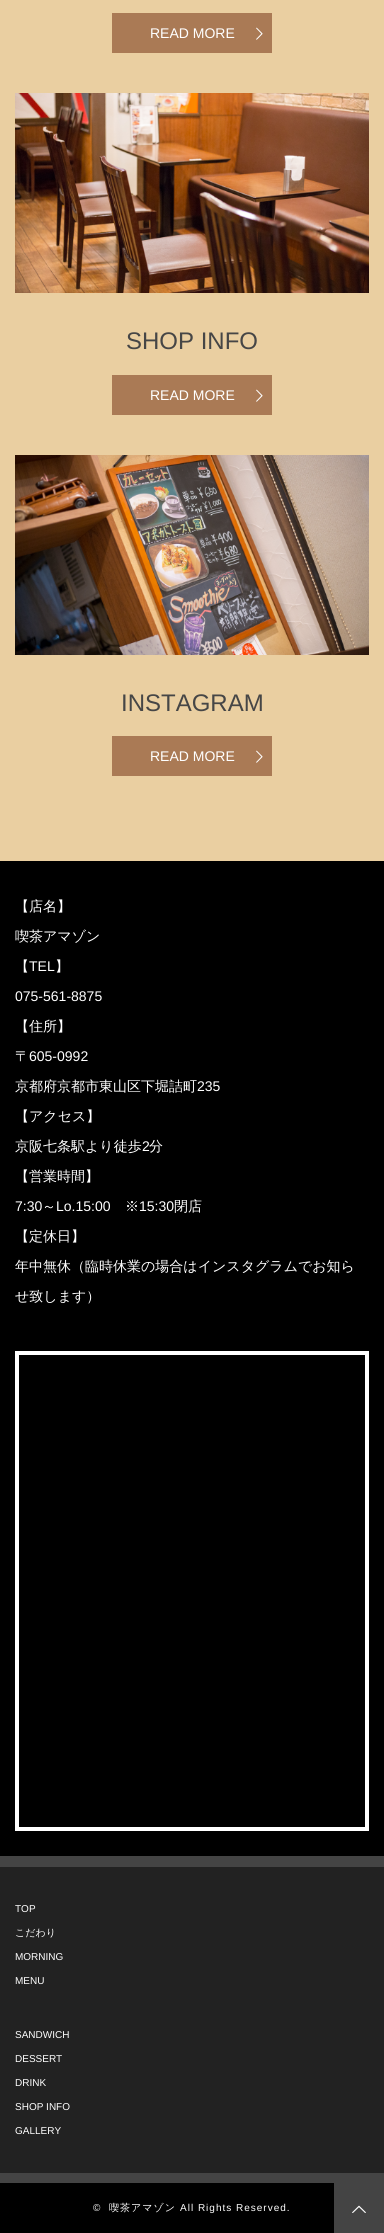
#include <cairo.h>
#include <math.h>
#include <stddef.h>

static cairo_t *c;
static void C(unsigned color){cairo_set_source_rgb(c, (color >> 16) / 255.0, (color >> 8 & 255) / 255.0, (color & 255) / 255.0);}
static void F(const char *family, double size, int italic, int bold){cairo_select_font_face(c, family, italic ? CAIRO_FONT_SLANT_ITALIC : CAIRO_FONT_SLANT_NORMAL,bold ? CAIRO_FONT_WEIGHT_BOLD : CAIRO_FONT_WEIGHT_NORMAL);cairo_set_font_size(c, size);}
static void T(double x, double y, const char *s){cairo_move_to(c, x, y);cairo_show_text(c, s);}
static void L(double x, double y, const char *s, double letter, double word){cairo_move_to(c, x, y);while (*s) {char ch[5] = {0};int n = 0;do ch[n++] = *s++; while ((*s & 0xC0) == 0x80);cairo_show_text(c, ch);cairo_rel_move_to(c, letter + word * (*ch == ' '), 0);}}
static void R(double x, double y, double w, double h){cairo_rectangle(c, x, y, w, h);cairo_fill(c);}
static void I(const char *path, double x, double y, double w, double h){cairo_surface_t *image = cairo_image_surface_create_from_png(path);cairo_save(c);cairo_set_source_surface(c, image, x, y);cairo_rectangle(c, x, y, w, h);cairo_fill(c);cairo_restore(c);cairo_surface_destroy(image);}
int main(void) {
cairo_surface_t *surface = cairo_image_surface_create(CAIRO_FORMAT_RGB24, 384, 2233);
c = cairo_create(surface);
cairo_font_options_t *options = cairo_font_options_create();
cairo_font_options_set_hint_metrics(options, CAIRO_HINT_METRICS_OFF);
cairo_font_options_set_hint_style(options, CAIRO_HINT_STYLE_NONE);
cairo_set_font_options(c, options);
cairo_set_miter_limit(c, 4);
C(0xeacfa1);
cairo_paint(c);
C(0xaa7a55);
R(112,13,160,40);
F("Liberation Sans",14,0,0);
C(0xffffff);
T(150,38,"READ MORE");
I("1.png",256,27,7,13);
I("2.png",15,93,354,200);
F("Liberation Sans",24,0,0);
C(0x464646);
T(126,349,"SHOP INFO");
C(0xaa7a55);
R(112,375,160,40);
F("Liberation Sans",14,0,0);
C(0xffffff);
T(150,400,"READ MORE");
I("1.png",256,389,7,13);
I("3.png",15,455,354,200);
F("Liberation Sans",24,0,0);
C(0x464646);
T(121,711,"INSTAGRAM");
C(0xaa7a55);
R(112,736,160,40);
F("Liberation Sans",14,0,0);
C(0xffffff);
T(150,761,"READ MORE");
I("1.png",256,750,7,13);
C(0x000000);
R(0,861,384,995);
F("WenQuanYi Zen Hei Medium",14,0,0);
C(0xffffff);
T(15,911,"【店名】");
T(15,941,"喫茶アマゾン");
T(15,971,"【");
F("Liberation Sans",14,0,0);
T(29,971,"TEL");
F("WenQuanYi Zen Hei Medium",14,0,0);
T(55,971,"】");
F("Liberation Sans",14,0,0);
T(15,1001,"075-561-8875");
F("WenQuanYi Zen Hei Medium",14,0,0);
T(15,1031,"【住所】");
T(15,1061,"〒");
F("Liberation Sans",14,0,0);
T(29,1061,"605-0992");
F("WenQuanYi Zen Hei Medium",14,0,0);
T(15,1091,"京都府京都市東山区下堀詰町");
F("Liberation Sans",14,0,0);
T(197,1091,"235");
F("WenQuanYi Zen Hei Medium",14,0,0);
T(15,1121,"【アクセス】");
T(15,1151,"京阪七条駅より徒歩");
F("Liberation Sans",14,0,0);
T(142,1151,"2");
F("WenQuanYi Zen Hei Medium",14,0,0);
T(149,1151,"分");
T(15,1181,"【営業時間】");
F("Liberation Sans",14,0,0);
T(15,1211,"7:30");
F("WenQuanYi Zen Hei Medium",14,0,0);
T(42,1211,"～");
F("Liberation Sans",14,0,0);
T(56,1211,"Lo.15:00");
F("WenQuanYi Zen Hei Medium",14,0,0);
T(125,1211,"※");
F("Liberation Sans",14,0,0);
T(139,1211,"15:30");
F("WenQuanYi Zen Hei Medium",14,0,0);
T(174,1211,"閉店");
T(15,1241,"【定休日】");
T(15,1271,"年中無休（臨時休業の場合はインスタグラムでお知ら");
T(15,1301,"せ致します）");
cairo_rectangle(c,17,1353,350,476);
cairo_set_line_width(c,4);
cairo_stroke(c);
C(0x444444);
R(0,1856,384,327);
C(0x222222);
R(0,1867,384,306);
F("Liberation Sans",10,0,0);
C(0xffffff);
T(15,1912,"TOP");
F("WenQuanYi Zen Hei Medium",10,0,0);
T(15,1936,"こだわり");
F("Liberation Sans",10,0,0);
T(15,1960,"MORNING");
T(15,1984,"MENU");
T(15,2038,"SANDWICH");
T(15,2062,"DESSERT");
T(15,2086,"DRINK");
T(15,2110,"SHOP INFO");
T(15,2134,"GALLERY");
C(0x000000);
R(0,2183,334,50);
C(0xffffff);
L(93,2211,"©",1,0);
F("WenQuanYi Zen Hei Medium",10,0,0);
L(109,2211,"喫茶アマゾン",1,0);
F("Liberation Sans",10,0,0);
L(180,2211,"All Rights Reserved.",1,0);
C(0x444444);
R(334,2183,50,50);
I("4.png",352,2205,14,8);
cairo_surface_write_to_png(surface, "o.png");
cairo_font_options_destroy(options);
cairo_destroy(c);
cairo_surface_destroy(surface);
return 0;
}
